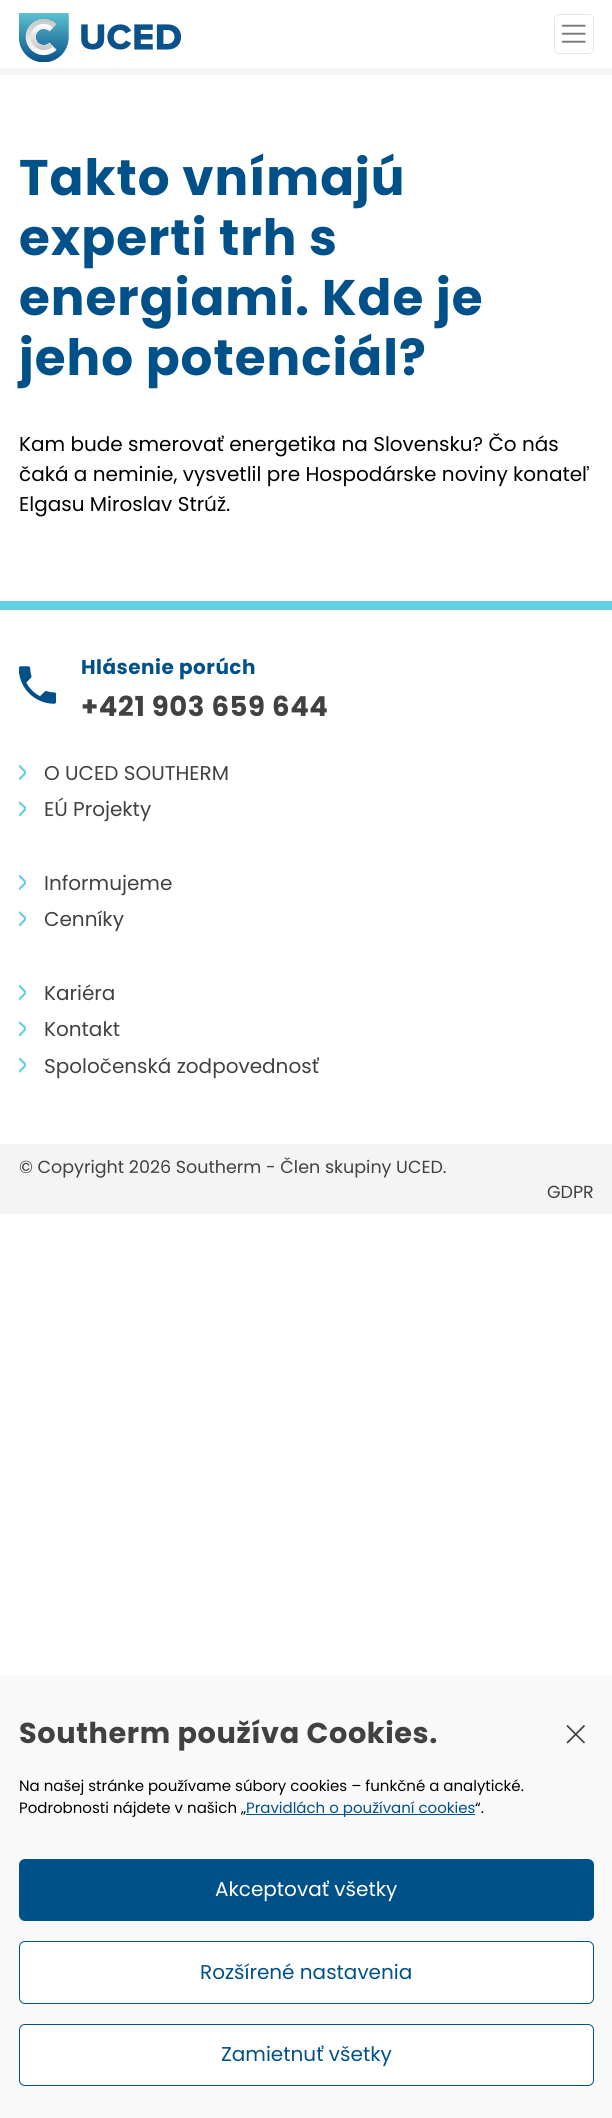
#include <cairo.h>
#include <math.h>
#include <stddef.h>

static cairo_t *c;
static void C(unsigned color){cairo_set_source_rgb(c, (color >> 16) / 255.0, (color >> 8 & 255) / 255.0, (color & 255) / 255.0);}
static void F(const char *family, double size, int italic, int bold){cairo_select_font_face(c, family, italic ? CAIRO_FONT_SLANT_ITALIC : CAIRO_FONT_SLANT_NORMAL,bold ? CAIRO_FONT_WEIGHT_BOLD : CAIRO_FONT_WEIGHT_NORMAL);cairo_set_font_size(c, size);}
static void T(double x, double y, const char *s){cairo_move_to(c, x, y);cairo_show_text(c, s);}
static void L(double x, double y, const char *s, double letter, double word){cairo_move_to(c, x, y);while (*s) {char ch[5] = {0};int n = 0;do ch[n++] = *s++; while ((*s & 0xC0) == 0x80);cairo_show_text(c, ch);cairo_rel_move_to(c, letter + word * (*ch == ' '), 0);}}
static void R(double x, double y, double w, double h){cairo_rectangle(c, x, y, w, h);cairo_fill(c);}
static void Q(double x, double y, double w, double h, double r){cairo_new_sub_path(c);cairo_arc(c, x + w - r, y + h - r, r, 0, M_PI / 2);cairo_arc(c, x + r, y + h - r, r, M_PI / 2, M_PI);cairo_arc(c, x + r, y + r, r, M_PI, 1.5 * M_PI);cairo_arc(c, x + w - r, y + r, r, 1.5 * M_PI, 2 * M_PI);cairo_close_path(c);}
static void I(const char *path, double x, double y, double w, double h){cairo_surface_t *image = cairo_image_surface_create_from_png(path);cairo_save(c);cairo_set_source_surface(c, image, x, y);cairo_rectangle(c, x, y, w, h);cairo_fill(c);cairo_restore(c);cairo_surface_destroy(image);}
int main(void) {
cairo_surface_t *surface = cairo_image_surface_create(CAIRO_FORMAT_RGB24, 612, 2118);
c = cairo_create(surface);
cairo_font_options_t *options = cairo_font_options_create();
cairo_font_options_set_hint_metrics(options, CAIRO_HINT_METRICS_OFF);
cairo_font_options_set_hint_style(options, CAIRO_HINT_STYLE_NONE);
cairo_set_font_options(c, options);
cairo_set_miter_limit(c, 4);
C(0xffffff);
cairo_paint(c);
C(0xf4f4f4);
R(0,68,612,7);
I("1.png",19,13,162,49);
Q(554.5,14.5,39,39,4.5);
C(0xe6e6e6);
cairo_set_line_width(c,1);
cairo_stroke(c);
I("2.png",561,24,25,19);
F("Poppins",50,0,1);
C(0x005189);
L(19,195,"Takto vnímajú",1,0);
L(19,255,"experti trh s",1,0);
L(19,315,"energiami. Kde je",1,0);
L(19,375,"jeho potenciál?",1,0);
F("Poppins",20,0,0);
C(0x000000);
T(19,451,"Kam bude smerovať energetika na Slovensku? Čo nás");
T(19,481,"čaká a neminie, vysvetlil pre Hospodárske noviny konateľ");
T(19,511,"Elgasu Miroslav Strúž.");
C(0x63cfe3);
R(0,601,612,9);
I("3.png",19,666,37,38);
F("Poppins",20,0,1);
C(0x005189);
L(81,674,"Hlásenie porúch",.5,0);
F("Poppins",27.5,0,1);
C(0x414141);
L(81,716,"+421 903 659 644",.6,0);
cairo_save(c);
cairo_rectangle(c,19,765,7,15);
cairo_clip(c);
cairo_new_path(c);
cairo_move_to(c,19,779.5);
cairo_line_to(c,26,772.5);
cairo_line_to(c,19,765.5);
C(0x63cfe3);
cairo_set_line_width(c,2.2);
cairo_stroke(c);
cairo_restore(c);
F("Poppins",20,0,0);
T(44,780,"O UCED SOUTHERM");
cairo_save(c);
cairo_rectangle(c,19,801,7,15);
cairo_clip(c);
cairo_new_path(c);
cairo_move_to(c,19,816);
cairo_line_to(c,26,808.5);
cairo_line_to(c,19,802);
C(0x63cfe3);
cairo_set_line_width(c,2.2);
cairo_stroke(c);
cairo_restore(c);
T(44,816,"EÚ Projekty");
cairo_save(c);
cairo_rectangle(c,19,875,7,15);
cairo_clip(c);
cairo_new_path(c);
cairo_move_to(c,19,889.5);
cairo_line_to(c,26,882.5);
cairo_line_to(c,19,875.5);
C(0x63cfe3);
cairo_set_line_width(c,2.2);
cairo_stroke(c);
cairo_restore(c);
T(44,890,"Informujeme");
cairo_save(c);
cairo_rectangle(c,19,911,7,15);
cairo_clip(c);
cairo_new_path(c);
cairo_move_to(c,19,926);
cairo_line_to(c,26,918.5);
cairo_line_to(c,19,912);
C(0x63cfe3);
cairo_set_line_width(c,2.2);
cairo_stroke(c);
cairo_restore(c);
T(44,926,"Cenníky");
cairo_save(c);
cairo_rectangle(c,19,985,7,15);
cairo_clip(c);
cairo_new_path(c);
cairo_move_to(c,19,999.5);
cairo_line_to(c,26,992.5);
cairo_line_to(c,19,985.5);
C(0x63cfe3);
cairo_set_line_width(c,2.2);
cairo_stroke(c);
cairo_restore(c);
T(44,1000,"Kariéra");
cairo_save(c);
cairo_rectangle(c,19,1021,7,15);
cairo_clip(c);
cairo_new_path(c);
cairo_move_to(c,19,1036);
cairo_line_to(c,26,1028.5);
cairo_line_to(c,19,1022);
C(0x63cfe3);
cairo_set_line_width(c,2.2);
cairo_stroke(c);
cairo_restore(c);
T(44,1036,"Kontakt");
cairo_save(c);
cairo_rectangle(c,19,1058,7,15);
cairo_clip(c);
cairo_new_path(c);
cairo_move_to(c,19,1072);
cairo_line_to(c,26,1065);
cairo_line_to(c,19,1058);
C(0x63cfe3);
cairo_set_line_width(c,2.2);
cairo_stroke(c);
cairo_restore(c);
T(44,1073,"Spoločenská zodpovednosť");
C(0xf4f4f4);
R(0,1144,612,70);
F("Poppins",17.5,0,0);
C(0x414141);
T(19,1173,"© Copyright 2026 Southerm - Člen skupiny UCED.");
T(547,1198,"GDPR");
C(0xf9f9f9);
R(0,1675,612,443);
F("Poppins",28.75,0,1);
C(0x414141);
L(19,1743,"Southerm používa Cookies.",.6,0);
cairo_new_path(c);
cairo_move_to(c,584.5,1725.5);
cairo_line_to(c,567,1743);
cairo_move_to(c,584.5,1743);
cairo_line_to(c,567,1725.5);
cairo_set_line_width(c,1.7);
cairo_stroke(c);
F("Poppins",15,0,0);
C(0x000000);
T(19,1791,"Na našej stránke používame súbory cookies – funkčné a analytické.");
T(19,1813,"Podrobnosti nájdete v našich „");
C(0x005189);
R(246,1814,229,1);
T(246,1813,"Pravidlách o používaní cookies");
C(0x000000);
T(475,1813,"“.");
C(0x005189);
Q(19,1859,575,62,6);
cairo_fill(c);
F("Poppins",20,0,0);
C(0xffffff);
T(215,1896,"Akceptovať všetky");
Q(19.5,1941.5,574,62,5.5);
cairo_fill_preserve(c);
C(0x005189);
cairo_set_line_width(c,1);
cairo_stroke(c);
T(200,1979,"Rozšírené nastavenia");
C(0xffffff);
Q(19.5,2024.5,574,61,5.5);
cairo_fill_preserve(c);
C(0x005189);
cairo_stroke(c);
T(221,2061,"Zamietnuť všetky");
cairo_surface_write_to_png(surface, "o.png");
cairo_font_options_destroy(options);
cairo_destroy(c);
cairo_surface_destroy(surface);
return 0;
}
